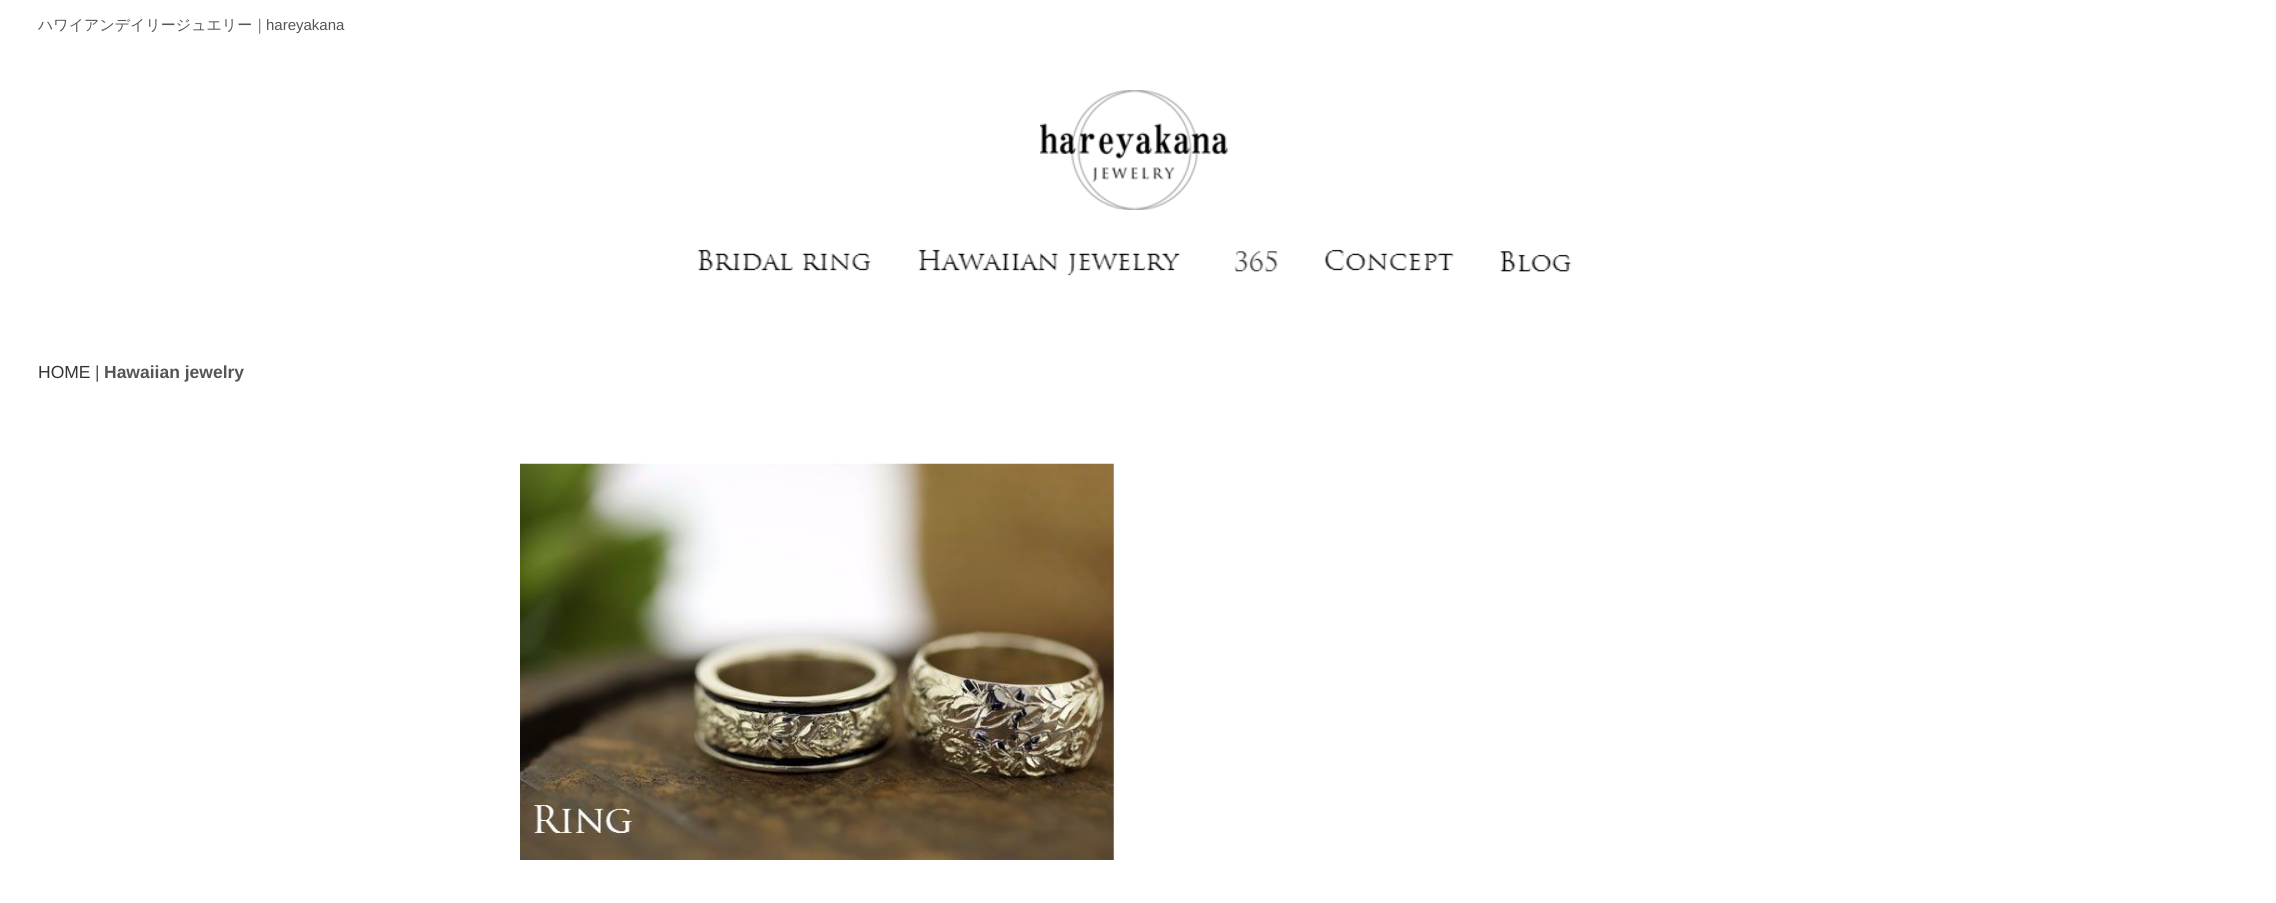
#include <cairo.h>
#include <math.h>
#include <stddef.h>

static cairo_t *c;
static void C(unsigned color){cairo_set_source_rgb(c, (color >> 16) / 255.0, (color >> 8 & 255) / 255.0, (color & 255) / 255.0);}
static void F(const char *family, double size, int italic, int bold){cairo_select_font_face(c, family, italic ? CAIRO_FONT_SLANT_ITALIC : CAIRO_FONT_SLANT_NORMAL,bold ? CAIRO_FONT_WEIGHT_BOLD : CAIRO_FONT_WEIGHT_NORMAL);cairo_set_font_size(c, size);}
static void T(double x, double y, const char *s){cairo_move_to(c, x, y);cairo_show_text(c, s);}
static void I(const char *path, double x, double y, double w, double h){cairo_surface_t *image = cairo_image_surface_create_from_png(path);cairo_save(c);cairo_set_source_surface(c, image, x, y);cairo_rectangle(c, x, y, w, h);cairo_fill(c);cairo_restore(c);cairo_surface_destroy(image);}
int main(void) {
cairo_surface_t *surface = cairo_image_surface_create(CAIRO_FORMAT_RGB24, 2276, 903);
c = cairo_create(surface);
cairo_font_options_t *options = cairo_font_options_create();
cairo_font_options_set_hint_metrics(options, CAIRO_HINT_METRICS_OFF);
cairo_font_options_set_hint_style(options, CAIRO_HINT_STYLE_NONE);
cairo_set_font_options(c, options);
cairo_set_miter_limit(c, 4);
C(0xffffff);
cairo_paint(c);
F("WenQuanYi Zen Hei Medium",15,0,0);
C(0x555555);
T(38,30,"ハワイアンデイリージュエリー｜");
F("Liberation Sans",15,0,0);
T(266,30,"hareyakana");
I("1.png",1040,90,188,120);
I("2.png",697,249,174,22);
I("3.png",918,249,263,27);
I("4.png",1234,251,44,21);
I("5.png",1324,249,130,22);
I("6.png",1500,251,72,21);
F("Liberation Sans",17.5,0,0);
C(0x333333);
T(38,378,"HOME");
C(0x555555);
T(95,378,"|");
F("Liberation Sans",17.5,0,1);
T(104,378,"Hawaiian jewelry");
I("7.png",520,463,594,397);
cairo_surface_write_to_png(surface, "o.png");
cairo_font_options_destroy(options);
cairo_destroy(c);
cairo_surface_destroy(surface);
return 0;
}
